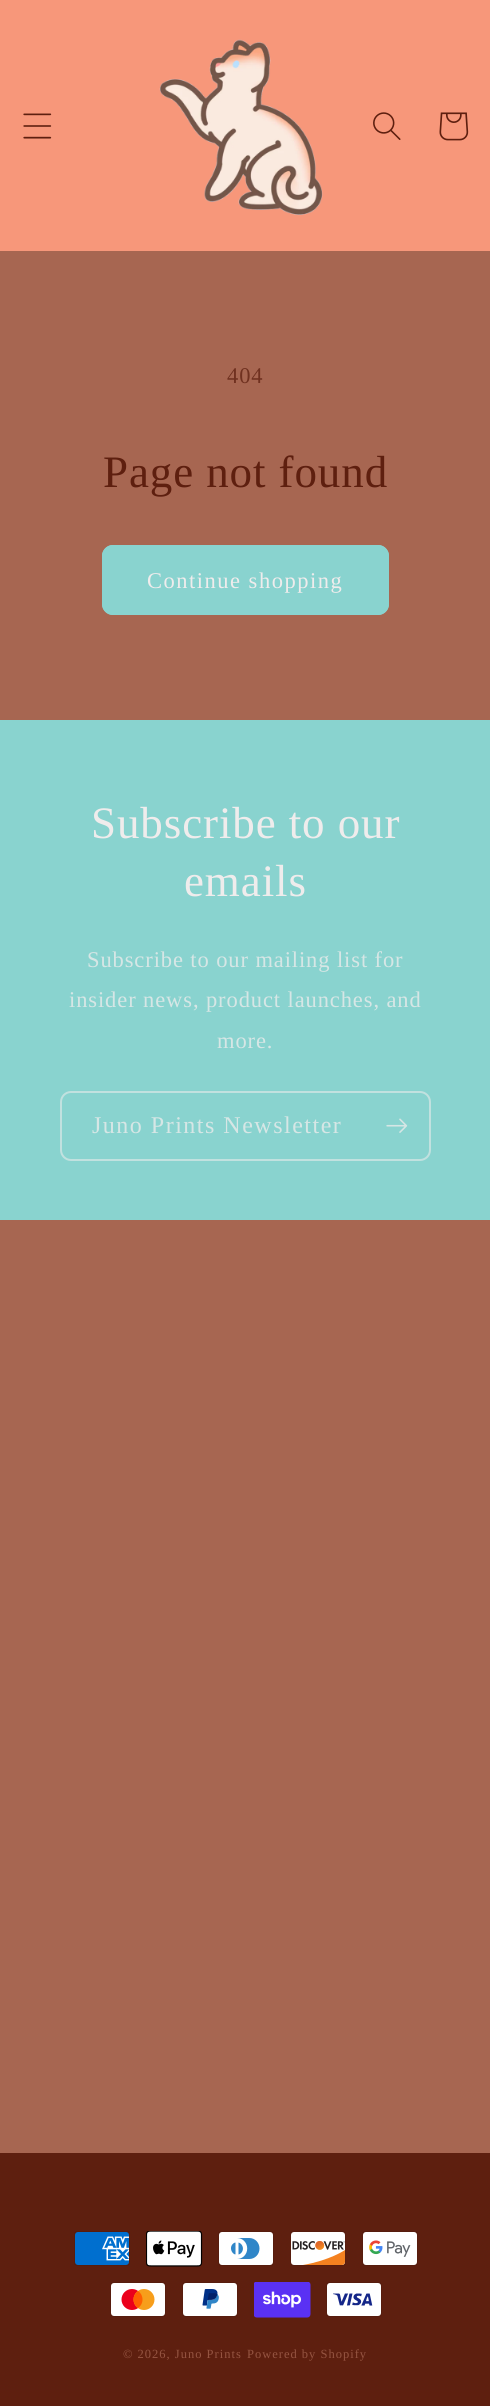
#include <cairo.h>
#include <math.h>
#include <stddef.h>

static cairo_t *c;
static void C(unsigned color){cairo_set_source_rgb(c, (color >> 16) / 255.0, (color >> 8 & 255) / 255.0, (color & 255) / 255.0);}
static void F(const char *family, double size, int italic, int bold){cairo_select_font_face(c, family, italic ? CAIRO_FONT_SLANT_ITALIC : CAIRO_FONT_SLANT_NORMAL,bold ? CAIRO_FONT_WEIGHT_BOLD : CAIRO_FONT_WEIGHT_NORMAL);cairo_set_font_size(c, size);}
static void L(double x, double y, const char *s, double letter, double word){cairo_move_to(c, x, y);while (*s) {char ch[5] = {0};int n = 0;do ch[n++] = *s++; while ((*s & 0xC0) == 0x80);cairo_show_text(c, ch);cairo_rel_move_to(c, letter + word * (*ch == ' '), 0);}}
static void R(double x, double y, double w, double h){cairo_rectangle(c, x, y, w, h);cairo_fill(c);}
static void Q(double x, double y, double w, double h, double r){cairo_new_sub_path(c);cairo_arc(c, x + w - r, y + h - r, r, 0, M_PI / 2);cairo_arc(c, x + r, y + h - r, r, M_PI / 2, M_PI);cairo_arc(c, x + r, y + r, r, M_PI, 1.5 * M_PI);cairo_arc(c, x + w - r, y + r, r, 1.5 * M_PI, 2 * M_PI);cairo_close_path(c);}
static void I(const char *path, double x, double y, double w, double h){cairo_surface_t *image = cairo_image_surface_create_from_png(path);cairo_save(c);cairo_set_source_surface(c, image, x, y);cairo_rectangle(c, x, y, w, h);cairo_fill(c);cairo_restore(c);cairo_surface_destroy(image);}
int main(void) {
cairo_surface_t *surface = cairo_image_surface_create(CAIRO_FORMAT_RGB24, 490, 2406);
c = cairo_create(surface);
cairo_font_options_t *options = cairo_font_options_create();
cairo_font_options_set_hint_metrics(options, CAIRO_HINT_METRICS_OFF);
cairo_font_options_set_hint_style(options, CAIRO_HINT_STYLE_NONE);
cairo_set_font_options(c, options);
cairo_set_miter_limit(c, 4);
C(0xa76651);
cairo_paint(c);
C(0xf7977a);
R(0,0,490,251);
I("1.png",23,113,29,26);
I("2.png",159,39,164,177);
I("3.png",373,112,28,28);
I("4.png",439,112,30,29);
F("Liberation Serif",22.5,0,0);
C(0x703120);
L(227,383,"404",.9,0);
F("Liberation Serif",45,0,0);
C(0x5e1f0f);
L(103,487,"Page not found",.9,0);
C(0x89d3cf);
Q(102,545,287,70,11);
cairo_fill(c);
Q(103,546,285,68,10);
cairo_stroke(c);
F("Liberation Serif",22.5,0,0);
C(0xefecec);
L(147,588,"Continue shopping",1.5,0);
C(0x89d3cf);
R(0,720,490,500);
F("Liberation Serif",45,0,0);
C(0xefecec);
L(91,838,"Subscribe to our",.9,0);
L(184,896,"emails",.9,0);
F("Liberation Serif",22.5,0,0);
C(0xd6e6e5);
L(87,967,"Subscribe to our mailing list for",.9,0);
L(69,1007,"insider news, product launches, and",.9,0);
L(217,1048,"more.",.9,0);
Q(61,1092,369,68,10);
C(0xc1e1df);
cairo_stroke(c);
F("Liberation Serif",24,0,0);
C(0xd6e6e5);
L(92,1133,"Juno Prints Newsletter",1.5,0);
I("5.png",386,1118,22,15);
C(0x5e1f0f);
R(0,2153,490,253);
I("6.png",74,2231,56,35);
I("7.png",146,2231,57,36);
I("8.png",218,2231,56,35);
I("9.png",290,2231,56,35);
I("10.png",362,2231,56,35);
I("11.png",110,2282,56,35);
I("12.png",182,2282,56,35);
I("13.png",254,2282,57,36);
I("14.png",326,2282,56,35);
F("Liberation Serif",12.5,0,0);
C(0x955441);
L(123,2358,"© 2026, Juno Prints",1,0);
L(247,2358,"Powered by Shopify",1,0);
cairo_surface_write_to_png(surface, "o.png");
cairo_font_options_destroy(options);
cairo_destroy(c);
cairo_surface_destroy(surface);
return 0;
}
